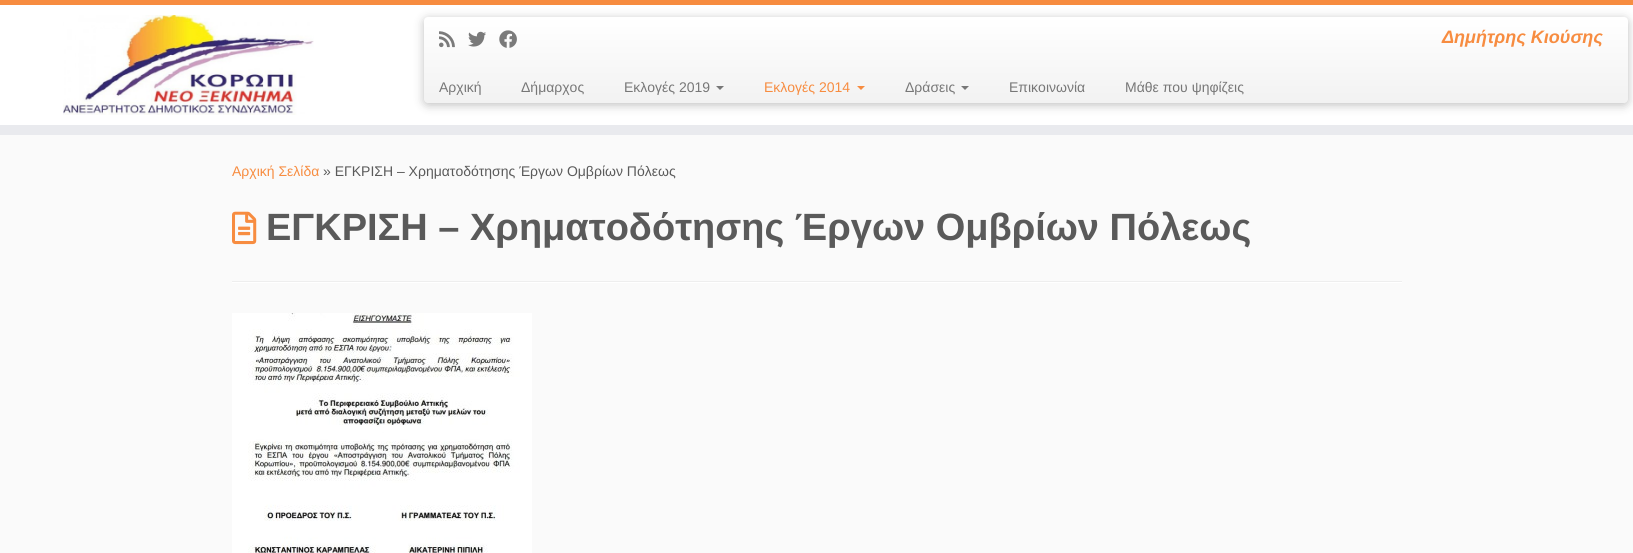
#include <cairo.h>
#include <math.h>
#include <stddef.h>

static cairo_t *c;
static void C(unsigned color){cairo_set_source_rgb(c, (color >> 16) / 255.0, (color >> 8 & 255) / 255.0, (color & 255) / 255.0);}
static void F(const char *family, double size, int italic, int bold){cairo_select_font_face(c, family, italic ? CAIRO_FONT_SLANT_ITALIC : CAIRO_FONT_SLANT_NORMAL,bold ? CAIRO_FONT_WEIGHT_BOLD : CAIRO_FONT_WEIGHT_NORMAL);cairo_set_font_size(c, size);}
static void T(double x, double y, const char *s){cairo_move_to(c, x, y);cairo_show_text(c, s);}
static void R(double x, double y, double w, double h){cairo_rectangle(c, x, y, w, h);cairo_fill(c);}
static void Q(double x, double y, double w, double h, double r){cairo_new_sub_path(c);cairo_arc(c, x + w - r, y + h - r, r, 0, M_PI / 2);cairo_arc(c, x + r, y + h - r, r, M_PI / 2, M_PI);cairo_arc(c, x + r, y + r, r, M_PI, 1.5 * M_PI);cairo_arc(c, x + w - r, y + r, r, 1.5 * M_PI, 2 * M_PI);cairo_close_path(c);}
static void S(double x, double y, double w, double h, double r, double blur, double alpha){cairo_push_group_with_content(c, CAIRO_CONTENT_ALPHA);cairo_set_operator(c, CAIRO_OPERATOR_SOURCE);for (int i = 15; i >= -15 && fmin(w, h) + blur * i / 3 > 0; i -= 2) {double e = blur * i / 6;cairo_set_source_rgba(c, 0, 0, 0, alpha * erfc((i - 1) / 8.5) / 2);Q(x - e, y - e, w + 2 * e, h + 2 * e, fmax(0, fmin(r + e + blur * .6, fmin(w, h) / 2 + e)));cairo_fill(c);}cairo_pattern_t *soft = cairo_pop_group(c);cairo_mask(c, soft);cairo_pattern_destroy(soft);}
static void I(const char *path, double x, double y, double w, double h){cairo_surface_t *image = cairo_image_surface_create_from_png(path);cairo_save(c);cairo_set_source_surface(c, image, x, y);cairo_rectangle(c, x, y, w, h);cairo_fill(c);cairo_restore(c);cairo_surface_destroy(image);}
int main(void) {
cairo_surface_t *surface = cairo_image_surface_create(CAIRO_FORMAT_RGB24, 1633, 553);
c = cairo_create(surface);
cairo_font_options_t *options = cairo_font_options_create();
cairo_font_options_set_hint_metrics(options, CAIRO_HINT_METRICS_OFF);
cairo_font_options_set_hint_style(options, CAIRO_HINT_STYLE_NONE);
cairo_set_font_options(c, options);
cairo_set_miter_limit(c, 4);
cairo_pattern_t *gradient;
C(0xfafafa);
cairo_paint(c);
C(0xffffff);
R(0,5,1633,120);
C(0xf78c40);
R(0,0,1633,5);
C(0xe9eaee);
R(0,125,1633,10);
I("1.png",63,15,251,100);
C(0x000000);
S(424,19,1204,86,4,5,.25);
gradient = cairo_pattern_create_linear(1026,17,1026,103);
cairo_pattern_add_color_stop_rgba(gradient,0,1,1,1,1);
cairo_pattern_add_color_stop_rgba(gradient,1,0.949,0.949,0.949,1);
cairo_set_source(c,gradient);
cairo_pattern_destroy(gradient);
Q(424,17,1204,86,4);
cairo_fill(c);
I("2.png",439,31,16,17);
I("3.png",468,31,18,16);
I("4.png",499,30,18,18);
F("Liberation Sans",18,1,1);
C(0xf78c40);
T(1442,43,"Δημήτρης Κιούσης");
F("Liberation Sans",14,0,0);
C(0x777777);
T(439,92,"Αρχική");
T(521,92,"Δήμαρχος");
T(624,92,"Εκλογές 2019");
cairo_new_path(c);
cairo_move_to(c,716,86);
cairo_line_to(c,724,86);
cairo_line_to(c,720,90);
cairo_close_path(c);
cairo_fill(c);
C(0xf78c40);
T(764,92,"Εκλογές 2014");
cairo_new_path(c);
cairo_move_to(c,857,86);
cairo_line_to(c,865,86);
cairo_line_to(c,861,90);
cairo_close_path(c);
cairo_fill(c);
C(0x777777);
T(905,92,"Δράσεις");
cairo_new_path(c);
cairo_move_to(c,961,86);
cairo_line_to(c,969,86);
cairo_line_to(c,965,90);
cairo_close_path(c);
cairo_fill(c);
T(1009,92,"Επικοινωνία");
T(1125,92,"Μάθε που ψηφίζεις");
C(0xf78c40);
T(232,176,"Αρχική Σελίδα");
C(0x5a5a5a);
T(323,176,"» ΕΓΚΡΙΣΗ – Χρηματοδότησης Έργων Ομβρίων Πόλεως");
I("5.png",232,211,25,34);
F("Liberation Sans",38,0,1);
T(266,240,"ΕΓΚΡΙΣΗ – Χρηματοδότησης Έργων Ομβρίων Πόλεως");
C(0xeeeeee);
R(232,281,1170,1);
C(0xffffff);
R(232,282,1170,1);
I("6.png",232,313,300,240);
cairo_surface_write_to_png(surface, "o.png");
cairo_font_options_destroy(options);
cairo_destroy(c);
cairo_surface_destroy(surface);
return 0;
}
